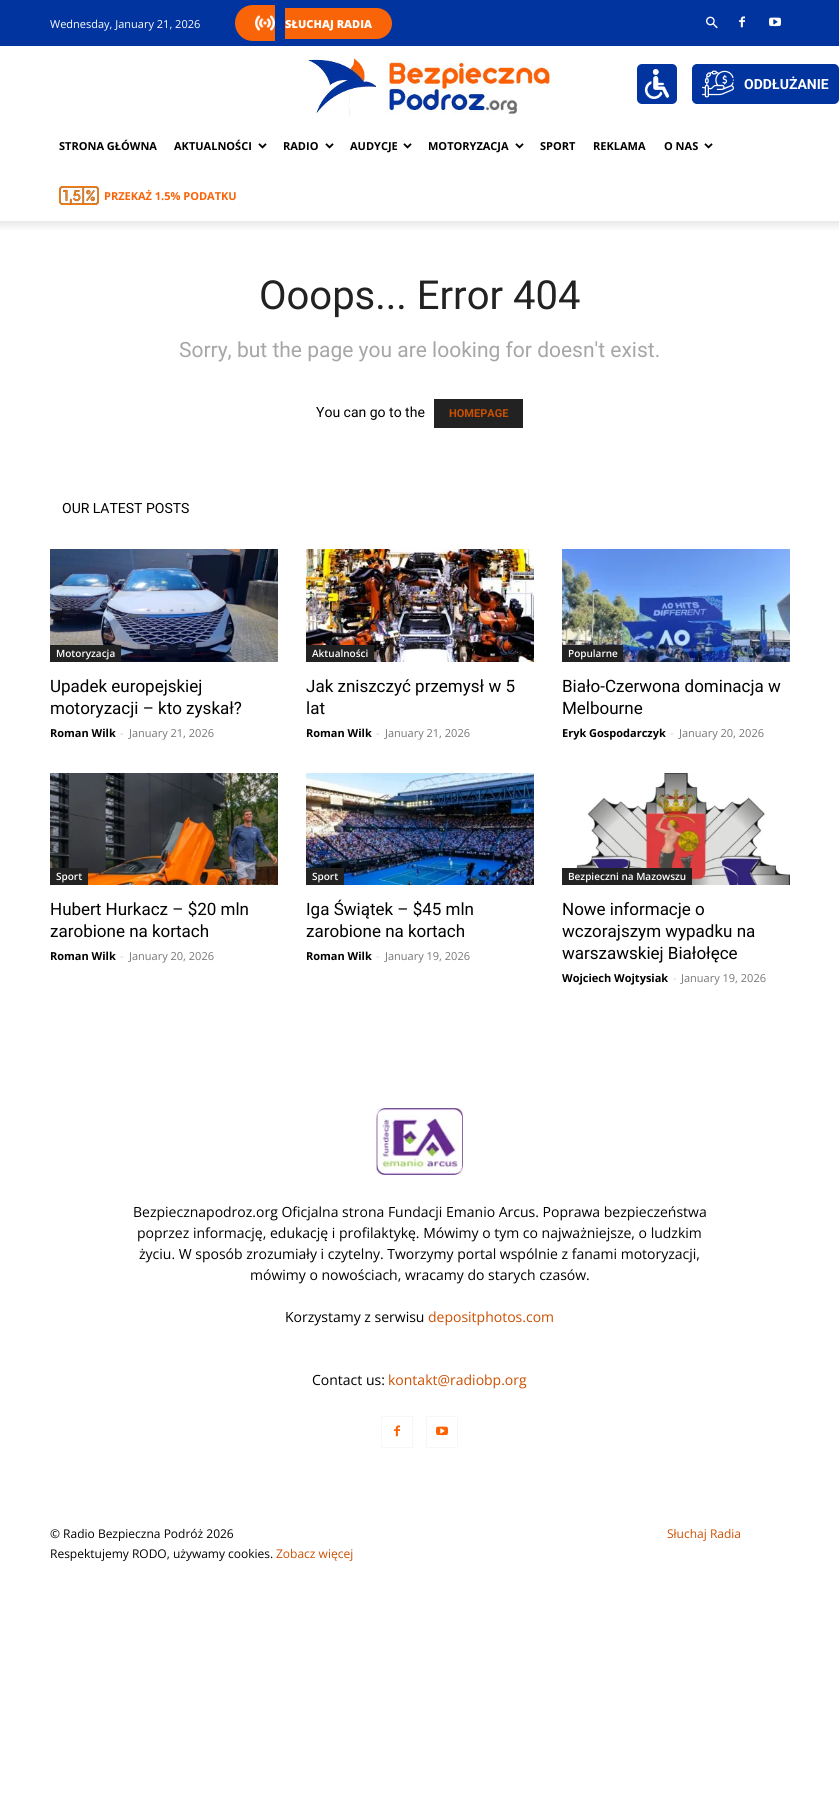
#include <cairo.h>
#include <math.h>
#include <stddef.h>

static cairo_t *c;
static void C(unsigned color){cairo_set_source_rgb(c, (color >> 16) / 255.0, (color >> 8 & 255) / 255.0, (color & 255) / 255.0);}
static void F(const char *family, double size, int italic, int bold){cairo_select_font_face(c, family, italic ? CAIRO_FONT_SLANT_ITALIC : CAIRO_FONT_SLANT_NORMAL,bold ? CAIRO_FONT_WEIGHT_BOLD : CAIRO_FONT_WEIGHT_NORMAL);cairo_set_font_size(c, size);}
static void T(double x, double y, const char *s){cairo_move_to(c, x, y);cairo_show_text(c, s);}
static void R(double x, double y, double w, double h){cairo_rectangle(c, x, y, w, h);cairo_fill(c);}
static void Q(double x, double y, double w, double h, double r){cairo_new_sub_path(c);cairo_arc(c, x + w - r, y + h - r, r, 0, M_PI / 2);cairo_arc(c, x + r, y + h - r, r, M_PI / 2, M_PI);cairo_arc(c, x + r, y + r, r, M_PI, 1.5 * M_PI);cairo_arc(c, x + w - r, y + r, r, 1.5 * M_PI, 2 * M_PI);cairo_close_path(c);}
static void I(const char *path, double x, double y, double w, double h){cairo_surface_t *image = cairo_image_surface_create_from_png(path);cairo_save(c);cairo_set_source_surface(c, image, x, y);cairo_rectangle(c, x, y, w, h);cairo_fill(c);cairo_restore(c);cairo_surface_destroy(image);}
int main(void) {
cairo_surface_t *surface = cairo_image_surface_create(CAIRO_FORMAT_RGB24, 839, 1809);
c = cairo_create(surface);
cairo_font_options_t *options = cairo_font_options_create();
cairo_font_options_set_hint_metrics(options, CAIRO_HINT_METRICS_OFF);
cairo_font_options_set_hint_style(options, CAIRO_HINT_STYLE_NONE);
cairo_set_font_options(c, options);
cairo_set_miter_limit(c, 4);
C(0xffffff);
cairo_paint(c);
C(0x01349f);
R(0,0,839,46);
F("Open Sans",11,0,0);
C(0xffffff);
T(50,28,"Wednesday, January 21, 2026");
C(0xf96408);
cairo_new_path(c);
cairo_move_to(c,253,5);
cairo_line_to(c,275,5);
cairo_line_to(c,275,41);
cairo_line_to(c,253,41);
cairo_curve_to(c,243,41,235,33,235,23);
cairo_curve_to(c,235,13,243,5,253,5);
cairo_close_path(c);
cairo_fill(c);
cairo_new_path(c);
cairo_move_to(c,285,8);
cairo_line_to(c,376.5,8);
cairo_curve_to(c,385,8,392,15,392,23.5);
cairo_curve_to(c,392,32,385,39,376.5,39);
cairo_line_to(c,285,39);
cairo_close_path(c);
cairo_fill(c);
I("1.png",255,15,20,16);
F("Open Sans ExtraBold",11,0,0);
C(0xffffff);
T(285,28,"SŁUCHAJ RADIA");
I("2.png",706,16,12,13);
I("3.png",739,16,6,12);
I("4.png",769,17,12,10);
I("5.png",308,58,242,58);
C(0x01349f);
Q(637,64,40,40,5);
cairo_fill(c);
I("6.png",644,69,26,30);
Q(692,64,147,40,5);
cairo_fill(c);
I("7.png",702,70,32,28);
F("Roboto",14,0,1);
C(0xffffff);
T(744,89,"ODDŁUŻANIE");
F("Open Sans",11,0,1);
C(0x000000);
T(59,150,"STRONA GŁÓWNA");
T(174,150,"AKTUALNOŚCI");
I("8.png",258,143,9,6);
T(283,150,"RADIO");
I("8.png",325,143,9,6);
T(350,150,"AUDYCJE");
I("8.png",403,143,9,6);
T(428,150,"MOTORYZACJA");
I("8.png",515,143,9,6);
T(540,150,"SPORT");
T(593,150,"REKLAMA");
T(664,150,"O NAS");
I("8.png",704,143,9,6);
I("9.png",59,186,40,19);
C(0xf96408);
T(104,200,"PRZEKAŻ 1.5% PODATKU");
I("10.png",0,221,839,9);
F("Roboto",40,0,0);
C(0x222222);
T(259,309,"Ooops... Error 404");
F("Roboto",21,0,0);
C(0xa6a6a6);
T(179,357,"Sorry, but the page you are looking for doesn't exist.");
F("Roboto",14,0,0);
C(0x000000);
T(316,417,"You can go to the");
C(0x222222);
R(434,399,89,29);
F("Roboto",11,0,1);
C(0xcb4f01);
T(449,417,"HOMEPAGE");
F("Roboto",14,0,0);
C(0x000000);
T(62,513,"OUR LATEST POSTS");
I("11.png",50,549,228,113);
C(0x222222);
R(50,645,71,17);
F("Open Sans SemiBold",10,0,0);
C(0xffffff);
T(56,657,"Motoryzacja");
F("Roboto",17,0,0);
C(0x000000);
T(50,692,"Upadek europejskiej");
T(50,714,"motoryzacji – kto zyskał?");
F("Open Sans",11,0,1);
T(50,737,"Roman Wilk");
F("Open Sans",11,0,0);
C(0xcccccc);
T(120,737,"-");
C(0x767676);
T(129,737,"January 21, 2026");
I("12.png",306,549,228,113);
C(0x222222);
R(306,645,68,17);
F("Open Sans SemiBold",10,0,0);
C(0xffffff);
T(312,657,"Aktualności");
F("Roboto",17,0,0);
C(0x000000);
T(306,692,"Jak zniszczyć przemysł w 5");
T(306,714,"lat");
F("Open Sans",11,0,1);
T(306,737,"Roman Wilk");
F("Open Sans",11,0,0);
C(0xcccccc);
T(376,737,"-");
C(0x767676);
T(385,737,"January 21, 2026");
I("13.png",562,549,228,113);
C(0x222222);
R(562,645,61,17);
F("Open Sans SemiBold",10,0,0);
C(0xffffff);
T(568,657,"Popularne");
F("Roboto",17,0,0);
C(0x000000);
T(562,692,"Biało-Czerwona dominacja w");
T(562,714,"Melbourne");
F("Open Sans",11,0,1);
T(562,737,"Eryk Gospodarczyk");
F("Open Sans",11,0,0);
C(0xcccccc);
T(670,737,"-");
C(0x767676);
T(679,737,"January 20, 2026");
I("14.png",50,773,228,112);
C(0x222222);
R(50,868,38,17);
F("Open Sans SemiBold",10,0,0);
C(0xffffff);
T(56,880,"Sport");
F("Roboto",17,0,0);
C(0x000000);
T(50,915,"Hubert Hurkacz – $20 mln");
T(50,937,"zarobione na kortach");
F("Open Sans",11,0,1);
T(50,960,"Roman Wilk");
F("Open Sans",11,0,0);
C(0xcccccc);
T(120,960,"-");
C(0x767676);
T(129,960,"January 20, 2026");
I("15.png",306,773,228,112);
C(0x222222);
R(306,868,38,17);
F("Open Sans SemiBold",10,0,0);
C(0xffffff);
T(312,880,"Sport");
F("Roboto",17,0,0);
C(0x000000);
T(306,915,"Iga Świątek – $45 mln");
T(306,937,"zarobione na kortach");
F("Open Sans",11,0,1);
T(306,960,"Roman Wilk");
F("Open Sans",11,0,0);
C(0xcccccc);
T(376,960,"-");
C(0x767676);
T(385,960,"January 19, 2026");
I("16.png",562,773,228,112);
C(0x222222);
R(562,868,130,17);
F("Open Sans SemiBold",10,0,0);
C(0xffffff);
T(568,880,"Bezpieczni na Mazowszu");
F("Roboto",17,0,0);
C(0x000000);
T(562,915,"Nowe informacje o");
T(562,937,"wczorajszym wypadku na");
T(562,959,"warszawskiej Białołęce");
F("Open Sans",11,0,1);
T(562,982,"Wojciech Wojtysiak");
F("Open Sans",11,0,0);
C(0xcccccc);
T(673,982,"-");
C(0x767676);
T(681,982,"January 19, 2026");
I("17.png",376,1108,87,67);
F("Open Sans",14,0,0);
C(0x000000);
T(133,1217,"Bezpiecznapodroz.org Oficjalna strona Fundacji Emanio Arcus. Poprawa bezpieczeństwa");
T(137,1238,"poprzez informację, edukację i profilaktykę. Mówimy o tym co najważniejsze, o ludzkim");
T(139,1259,"życiu. W sposób zrozumiały i czytelny. Tworzymy portal wspólnie z fanami motoryzacji,");
T(250,1280,"mówimy o nowościach, wracamy do starych czasów.");
T(285,1322,"Korzystamy z serwisu");
C(0xcb4f01);
T(428,1322,"depositphotos.com");
C(0x000000);
T(312,1385,"Contact us:");
C(0xcb4f01);
T(388,1385,"kontakt@radiobp.org");
I("18.png",394,1425,6,12);
cairo_rectangle(c,381.5,1416.5,31,31);
C(0xf7f7f7);
cairo_set_line_width(c,1);
cairo_stroke(c);
I("19.png",436,1426,12,10);
cairo_rectangle(c,426.5,1416.5,31,31);
cairo_stroke(c);
F("Open Sans",12,0,0);
C(0x000000);
T(50,1538,"© Radio Bezpieczna Podróż 2026");
T(50,1558,"Respektujemy RODO, używamy cookies.");
C(0xcb4f01);
T(276,1558,"Zobacz więcej");
T(667,1538,"Słuchaj Radia");
cairo_surface_write_to_png(surface, "o.png");
cairo_font_options_destroy(options);
cairo_destroy(c);
cairo_surface_destroy(surface);
return 0;
}
